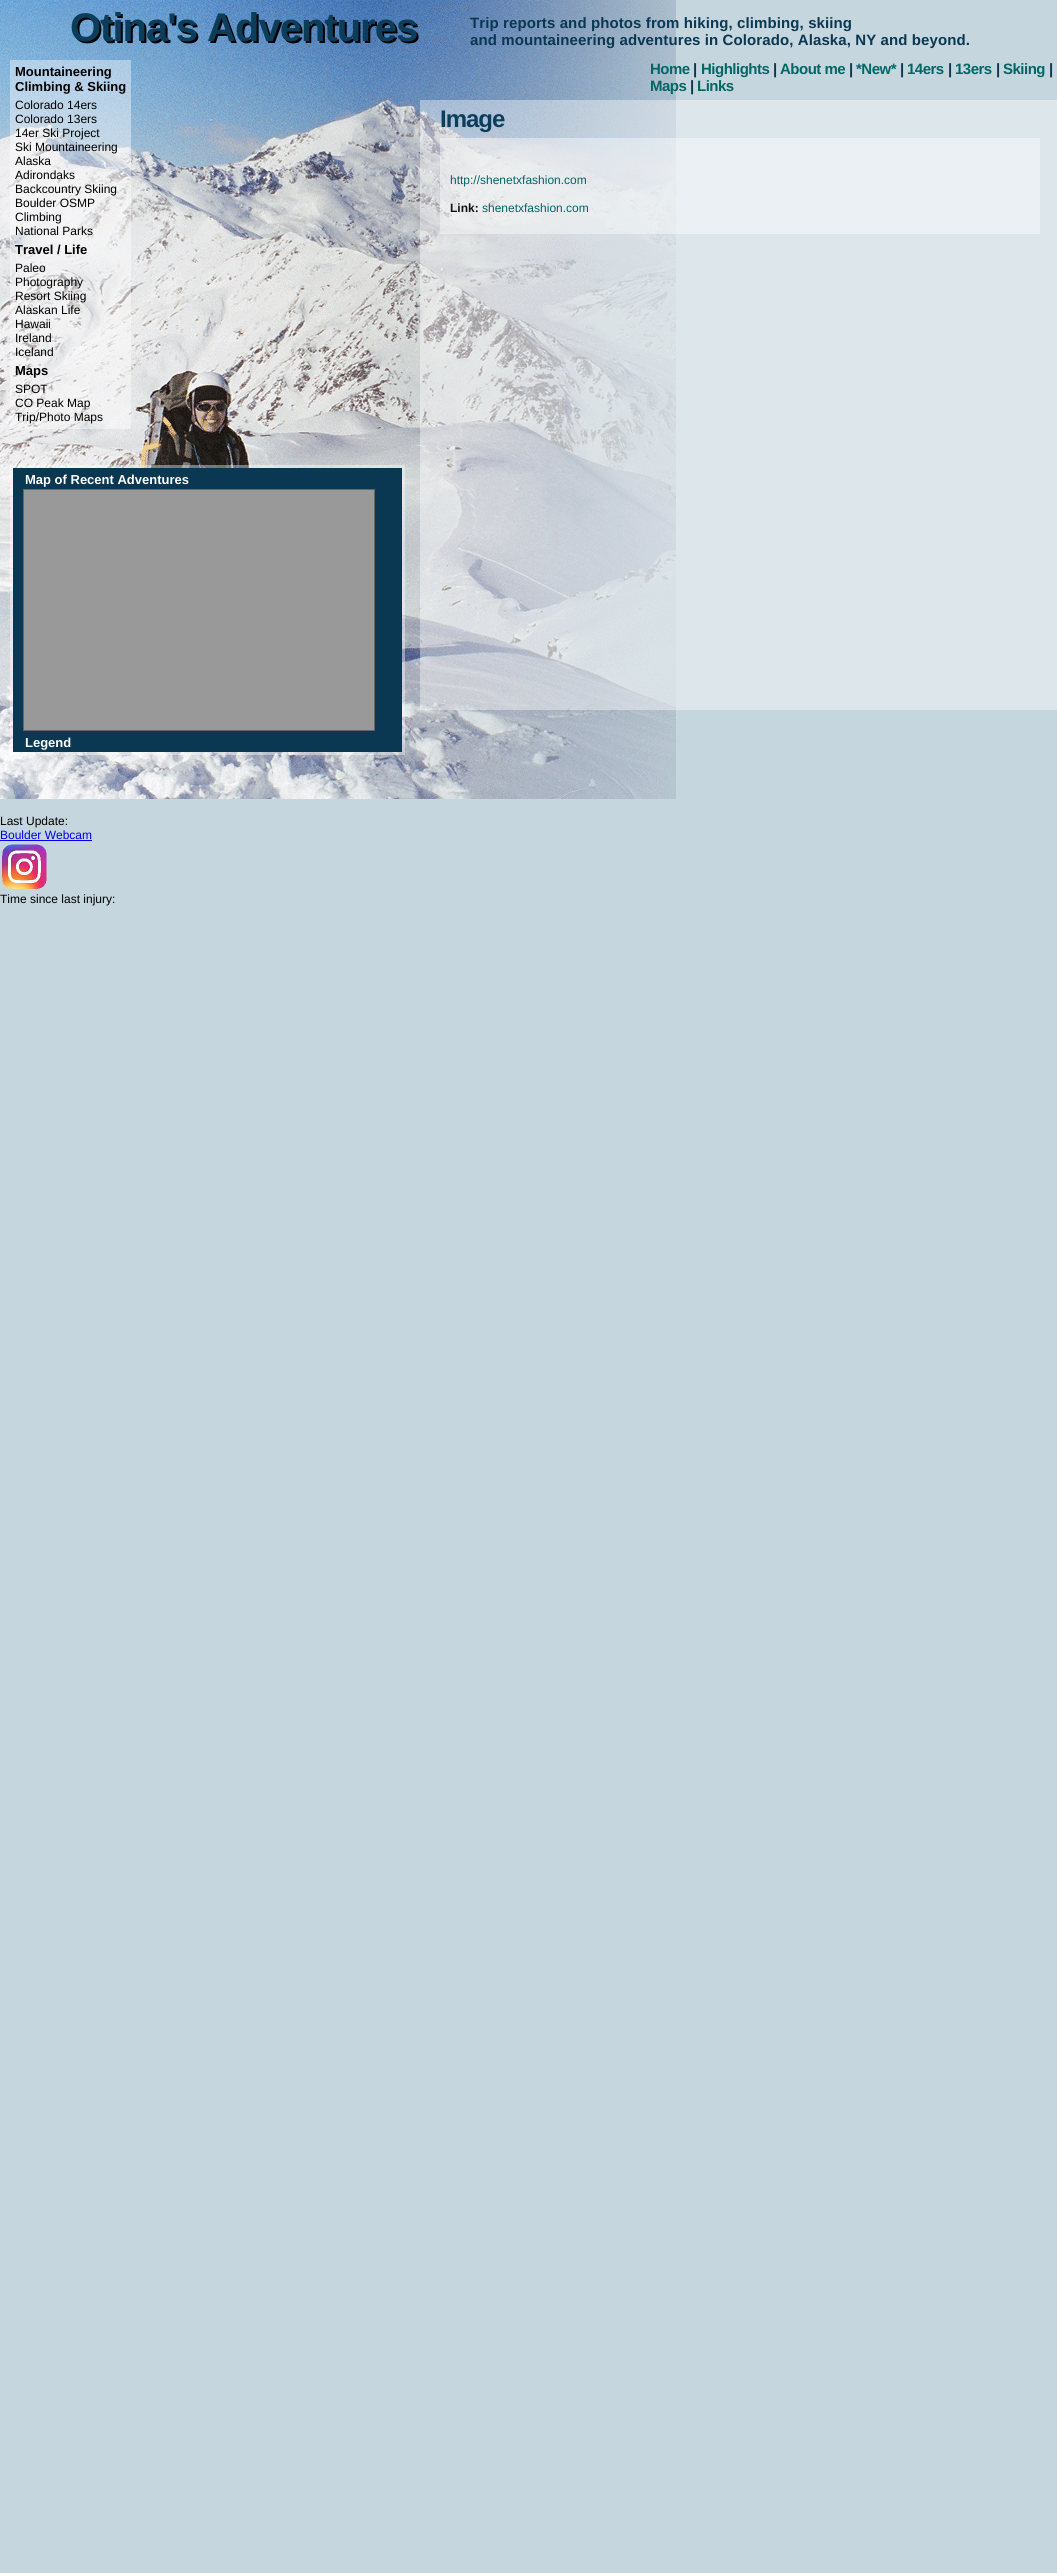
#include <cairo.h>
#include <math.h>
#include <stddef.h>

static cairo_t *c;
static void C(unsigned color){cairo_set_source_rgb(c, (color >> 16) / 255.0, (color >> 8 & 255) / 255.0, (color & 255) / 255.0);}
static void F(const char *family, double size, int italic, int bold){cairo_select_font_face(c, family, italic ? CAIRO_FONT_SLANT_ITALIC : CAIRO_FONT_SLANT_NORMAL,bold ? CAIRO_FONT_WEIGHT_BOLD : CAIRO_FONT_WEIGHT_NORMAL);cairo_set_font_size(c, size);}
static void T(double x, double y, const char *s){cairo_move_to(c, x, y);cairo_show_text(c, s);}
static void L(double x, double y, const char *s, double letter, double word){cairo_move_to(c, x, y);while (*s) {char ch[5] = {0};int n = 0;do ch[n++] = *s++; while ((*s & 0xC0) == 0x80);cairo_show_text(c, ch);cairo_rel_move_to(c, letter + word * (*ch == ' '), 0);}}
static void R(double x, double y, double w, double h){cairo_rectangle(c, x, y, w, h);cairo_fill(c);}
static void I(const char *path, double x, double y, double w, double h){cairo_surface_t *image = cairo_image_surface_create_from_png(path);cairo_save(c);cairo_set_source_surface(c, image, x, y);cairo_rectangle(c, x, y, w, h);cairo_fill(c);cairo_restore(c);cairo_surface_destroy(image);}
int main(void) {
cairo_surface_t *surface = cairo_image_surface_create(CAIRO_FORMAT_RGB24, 1057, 2573);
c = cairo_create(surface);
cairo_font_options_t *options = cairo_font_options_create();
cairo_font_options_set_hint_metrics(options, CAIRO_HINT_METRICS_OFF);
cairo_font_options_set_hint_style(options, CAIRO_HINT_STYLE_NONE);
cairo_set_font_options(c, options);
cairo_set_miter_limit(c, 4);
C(0xc5d6de);
cairo_paint(c);
I("1.png",0,0,676,799);
F("Liberation Sans",40,0,1);
C(0x000000);
L(72,43,"Otina's Adventures",-1,0);
C(0x0c3d5a);
L(70,41,"Otina's Adventures",-1,0);
F("Liberation Sans",15,0,1);
C(0x0a3752);
L(470,28,"Trip reports and photos from hiking, climbing, skiing",.1,0);
L(470,45,"and mountaineering adventures in Colorado, Alaska, NY and beyond.",.1,0);
cairo_set_source_rgba(c,1,1,1,0.4);
R(10,60,121,369);
F("Liberation Sans",13,0,1);
C(0x000000);
T(15,76,"Mountaineering");
T(15,91,"Climbing & Skiing");
F("Liberation Sans",12,0,0);
T(15,109,"Colorado 14ers");
T(15,123,"Colorado 13ers");
T(15,137,"14er Ski Project");
T(15,151,"Ski Mountaineering");
T(15,165,"Alaska");
T(15,179,"Adirondaks");
T(15,193,"Backcountry Skiing");
T(15,207,"Boulder OSMP");
T(15,221,"Climbing");
T(15,235,"National Parks");
F("Liberation Sans",13,0,1);
T(15,254,"Travel / Life");
F("Liberation Sans",12,0,0);
T(15,272,"Paleo");
T(15,286,"Photography");
T(15,300,"Resort Skiing");
T(15,314,"Alaskan Life");
T(15,328,"Hawaii");
T(15,342,"Ireland");
T(15,356,"Iceland");
F("Liberation Sans",13,0,1);
T(15,375,"Maps");
F("Liberation Sans",12,0,0);
T(15,393,"SPOT");
T(15,407,"CO Peak Map");
T(15,421,"Trip/Photo Maps");
F("Liberation Sans",15,0,1);
C(0x006666);
L(650,74,"Home",-.5,0);
C(0x0a3752);
L(693,74,"|",-.5,0);
C(0x006666);
L(701,74,"Highlights",-.5,0);
C(0x0a3752);
L(773,74,"|",-.5,0);
C(0x006666);
L(780,74,"About me",-.5,0);
C(0x0a3752);
L(849,74,"|",-.5,0);
C(0x006666);
L(856,74,"*New*",-.5,0);
C(0x0a3752);
L(900,74,"|",-.5,0);
C(0x006666);
L(907,74,"14ers",-.5,0);
C(0x0a3752);
L(948,74,"|",-.5,0);
C(0x006666);
L(955,74,"13ers",-.5,0);
C(0x0a3752);
L(996,74,"|",-.5,0);
C(0x006666);
L(1003,74,"Skiing",-.5,0);
C(0x0a3752);
L(1049,74,"|",-.5,0);
C(0x006666);
L(650,91,"Maps",-.5,0);
C(0x0a3752);
L(690,91,"|",-.5,0);
C(0x006666);
L(697,91,"Links",-.5,0);
cairo_set_source_rgba(c,1,1,1,0.4);
R(10,465,395,290);
C(0x0a3752);
R(13,468,389,284);
F("Liberation Sans",13,0,1);
C(0xffffff);
T(25,484,"Map of Recent Adventures");
C(0x999999);
cairo_rectangle(c,23.5,489.5,351,241);
cairo_fill_preserve(c);
C(0x666666);
cairo_set_line_width(c,1);
cairo_stroke(c);
C(0xffffff);
T(25,747,"Legend");
cairo_set_source_rgba(c,1,1,1,0.4);
R(420,100,637,610);
F("Liberation Sans",24,0,1);
C(0x0c3d5a);
L(440,127,"Image",-1,0);
cairo_set_source_rgba(c,1,1,1,0.4);
R(440,138,600,96);
F("Liberation Sans",12,0,0);
C(0x006666);
T(450,184,"http://shenetxfashion.com");
F("Liberation Sans",12,0,1);
C(0x111111);
T(450,212,"Link:");
F("Liberation Sans",12,0,0);
C(0x006666);
T(482,212,"shenetxfashion.com");
C(0x000000);
T(0,825,"Last Update:");
C(0x0000ee);
T(0,839,"Boulder Webcam");
R(0,840,92,1);
I("2.png",2,844,45,45);
C(0x000000);
T(0,903,"Time since last injury:");
cairo_surface_write_to_png(surface, "o.png");
cairo_font_options_destroy(options);
cairo_destroy(c);
cairo_surface_destroy(surface);
return 0;
}
